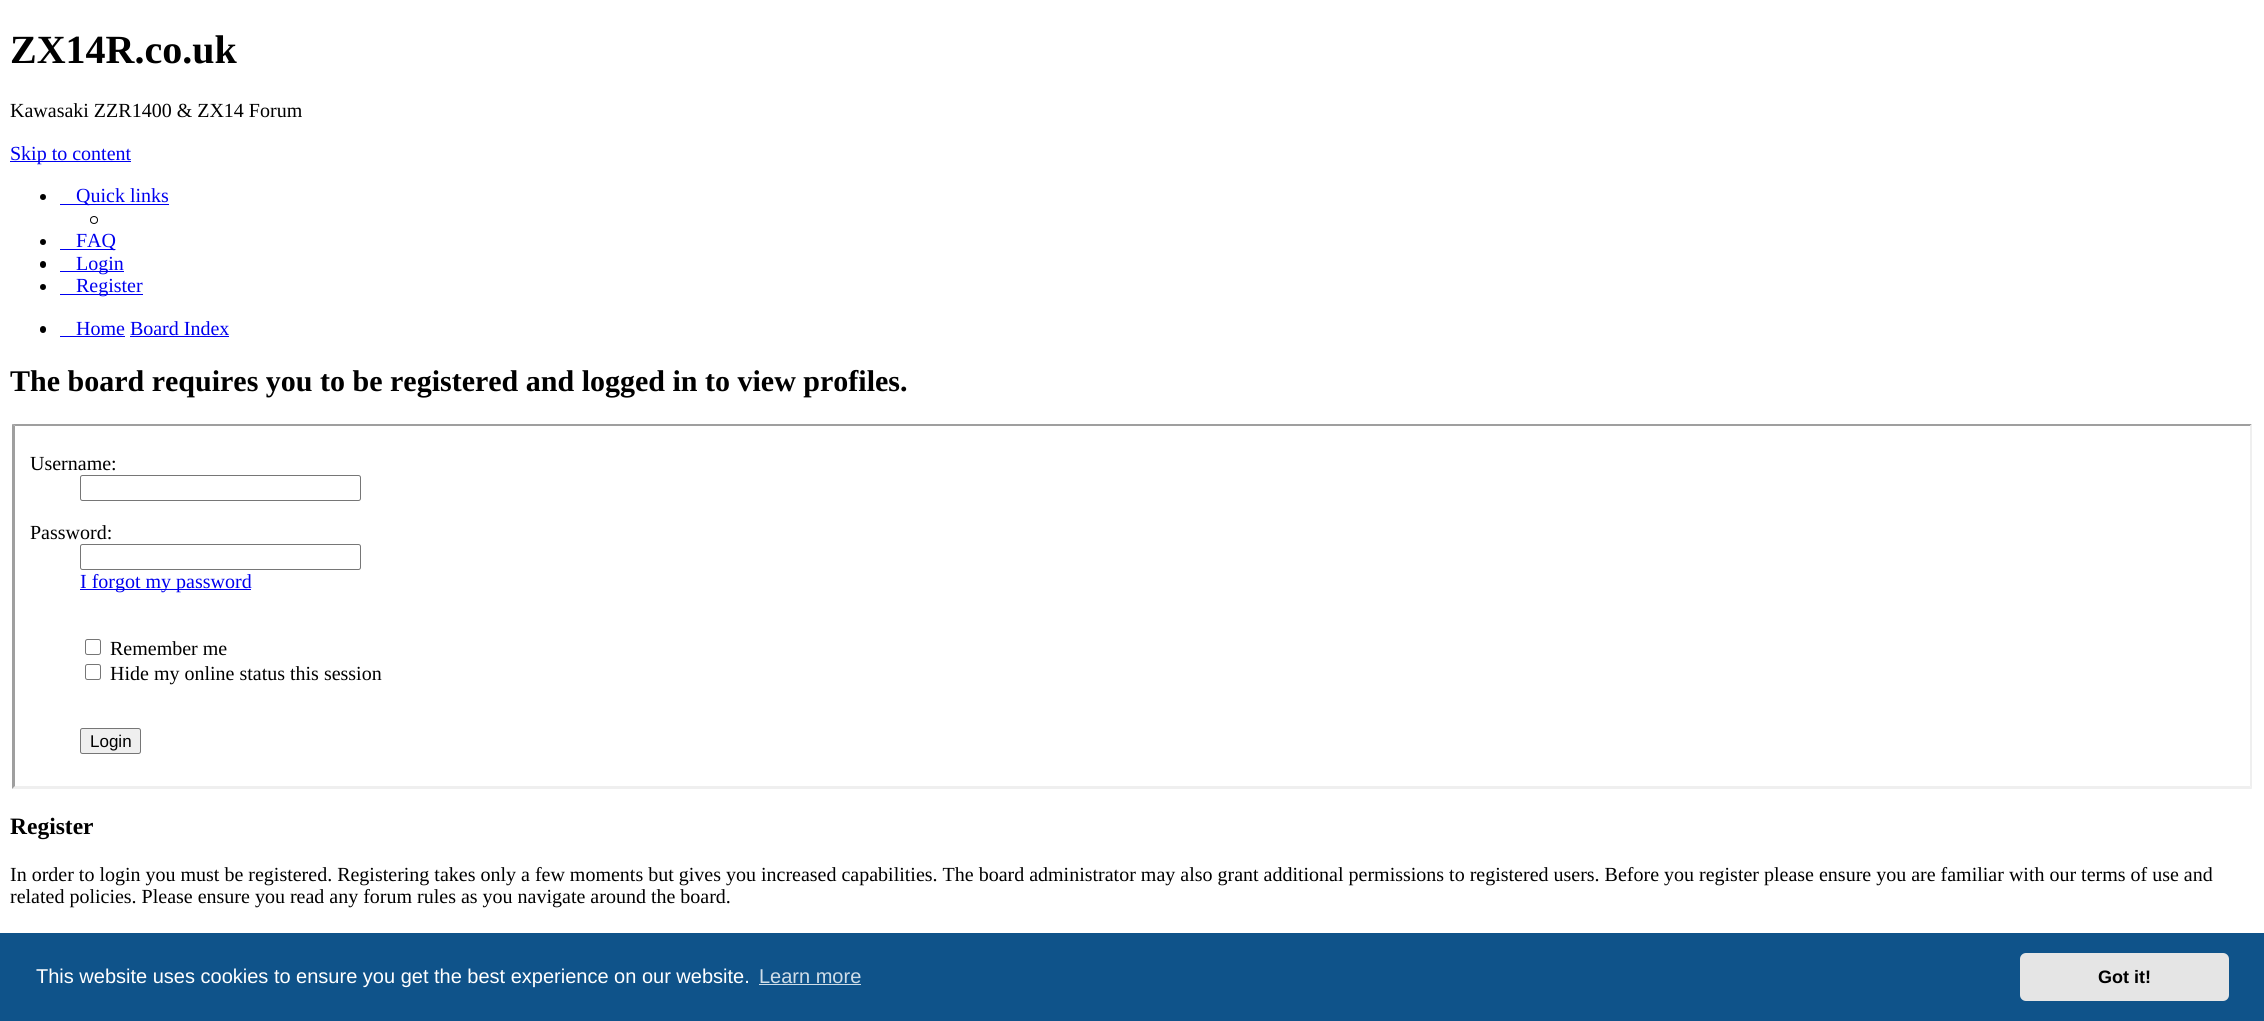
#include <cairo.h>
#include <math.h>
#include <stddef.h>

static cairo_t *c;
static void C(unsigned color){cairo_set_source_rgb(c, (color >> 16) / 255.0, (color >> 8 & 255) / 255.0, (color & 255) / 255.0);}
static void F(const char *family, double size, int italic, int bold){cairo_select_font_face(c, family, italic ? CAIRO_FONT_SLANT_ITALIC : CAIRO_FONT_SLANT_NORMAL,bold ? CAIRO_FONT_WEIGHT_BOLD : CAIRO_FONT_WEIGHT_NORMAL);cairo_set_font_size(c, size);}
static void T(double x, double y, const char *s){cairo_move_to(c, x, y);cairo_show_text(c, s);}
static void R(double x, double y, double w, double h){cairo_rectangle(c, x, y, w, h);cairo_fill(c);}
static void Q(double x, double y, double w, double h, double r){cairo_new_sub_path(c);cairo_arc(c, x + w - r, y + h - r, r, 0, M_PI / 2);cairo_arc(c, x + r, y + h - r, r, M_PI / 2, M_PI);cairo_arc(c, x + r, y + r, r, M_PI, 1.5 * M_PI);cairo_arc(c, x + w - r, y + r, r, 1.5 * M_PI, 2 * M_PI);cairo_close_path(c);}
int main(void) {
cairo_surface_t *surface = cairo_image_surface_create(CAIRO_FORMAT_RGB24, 2264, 1021);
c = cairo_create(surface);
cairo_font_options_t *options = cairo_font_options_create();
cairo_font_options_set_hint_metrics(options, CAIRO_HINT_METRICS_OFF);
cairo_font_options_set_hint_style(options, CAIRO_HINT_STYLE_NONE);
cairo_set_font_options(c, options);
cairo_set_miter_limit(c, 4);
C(0xffffff);
cairo_paint(c);
F("Liberation Serif",40,0,1);
C(0x000000);
T(10,63,"ZX14R.co.uk");
F("Liberation Serif",20,0,0);
T(10,117,"Kawasaki ZZR1400 & ZX14 Forum");
C(0x0000ee);
R(10,161,121,1);
T(10,160,"Skip to content");
C(0x000000);
cairo_new_path(c);
cairo_arc(c,43,197,3,0,2 * M_PI);
cairo_fill(c);
C(0x0000ee);
R(60,204,109,1);
T(76,202,"Quick links");
cairo_new_path(c);
cairo_arc(c,94,220,3.5,0,2 * M_PI);
C(0x000000);
cairo_set_line_width(c,1);
cairo_stroke(c);
cairo_arc(c,43,242,3,0,2 * M_PI);
cairo_fill(c);
C(0x0000ee);
R(60,249,55,1);
T(76,247,"FAQ");
C(0x000000);
Q(40,261,6,7,3);
cairo_fill(c);
C(0x0000ee);
R(60,271,64,1);
T(76,270,"Login");
C(0x000000);
cairo_new_path(c);
cairo_arc(c,43,287,3,0,2 * M_PI);
cairo_fill(c);
C(0x0000ee);
R(60,294,83,1);
T(76,292,"Register");
C(0x000000);
Q(40,326,6,7,3);
cairo_fill(c);
C(0x0000ee);
T(76,335,"Home Board Index");
R(60,336,65,1);
R(130,336,99,1);
F("Liberation Serif",30,0,1);
C(0x000000);
T(10,391,"The board requires you to be registered and logged in to view profiles.");
C(0x9f9f9f);
cairo_new_path(c);
cairo_move_to(c,12,424);
cairo_line_to(c,2252,424);
cairo_line_to(c,2250,426);
cairo_line_to(c,15,426);
cairo_close_path(c);
cairo_fill(c);
C(0xefefef);
cairo_new_path(c);
cairo_move_to(c,2252,424);
cairo_line_to(c,2252,789);
cairo_line_to(c,2250,786);
cairo_line_to(c,2250,426);
cairo_close_path(c);
cairo_fill(c);
cairo_new_path(c);
cairo_move_to(c,2252,789);
cairo_line_to(c,12,789);
cairo_line_to(c,15,786);
cairo_line_to(c,2250,786);
cairo_close_path(c);
cairo_fill(c);
C(0x9f9f9f);
cairo_new_path(c);
cairo_move_to(c,12,789);
cairo_line_to(c,12,424);
cairo_line_to(c,15,426);
cairo_line_to(c,15,786);
cairo_close_path(c);
cairo_fill(c);
F("Liberation Serif",20,0,0);
C(0x000000);
T(30,470,"Username:");
Q(80.5,475.5,280,25,2);
C(0x767676);
cairo_stroke(c);
C(0x000000);
T(30,539,"Password:");
Q(80.5,544.5,280,25,2);
C(0x767676);
cairo_stroke(c);
C(0x0000ee);
R(80,589,171,1);
T(80,588,"I forgot my password");
Q(85.5,639.5,15,15,2);
C(0x767676);
cairo_stroke(c);
C(0x000000);
T(110,655,"Remember me");
Q(85.5,664.5,15,15,2);
C(0x767676);
cairo_stroke(c);
C(0x000000);
T(110,680,"Hide my online status this session");
C(0xefefef);
Q(80.5,728.5,60,25,2);
cairo_fill_preserve(c);
C(0x767676);
cairo_stroke(c);
F("Liberation Sans",17,0,0);
C(0x000000);
T(90,747,"Login");
F("Liberation Serif",23.5,0,1);
T(10,834,"Register");
F("Liberation Serif",20,0,0);
T(10,881,"In order to login you must be registered. Registering takes only a few moments but gives you increased capabilities. The board administrator may also grant additional permissions to registered users. Before you register please ensure you are familiar with our terms of use and");
T(10,903,"related policies. Please ensure you read any forum rules as you navigate around the board.");
C(0x0f538a);
R(0,933,2264,88);
F("Liberation Sans",20,0,0);
C(0xffffff);
T(36,983,"This website uses cookies to ensure you get the best experience on our website.");
C(0xcfdde8);
T(759,983,"Learn more");
R(759,984,102,1);
C(0xe5e5e5);
Q(2020,953,209,48,6);
cairo_fill(c);
F("Liberation Sans",18,0,1);
C(0x000000);
T(2098,983,"Got it!");
cairo_surface_write_to_png(surface, "o.png");
cairo_font_options_destroy(options);
cairo_destroy(c);
cairo_surface_destroy(surface);
return 0;
}
